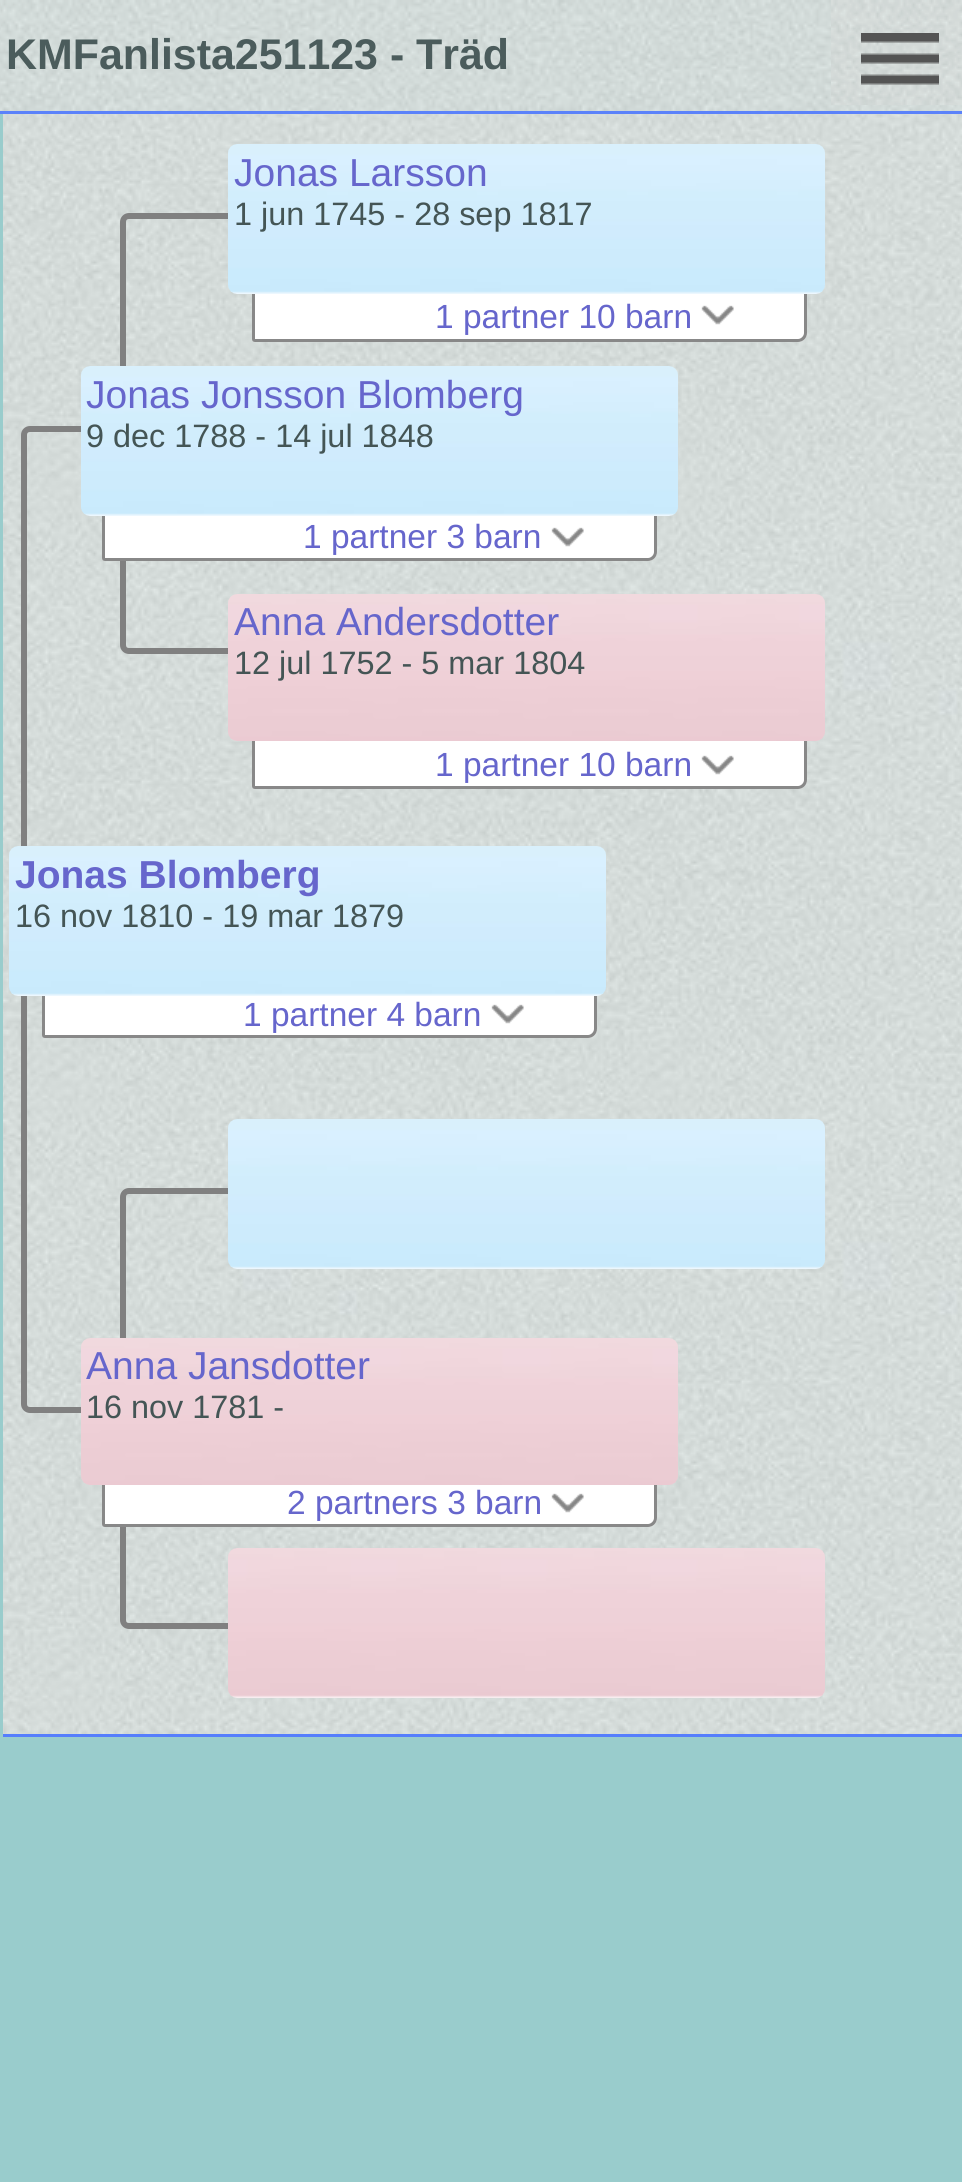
#include <cairo.h>
#include <math.h>
#include <stddef.h>

static cairo_t *c;
static void C(unsigned color){cairo_set_source_rgb(c, (color >> 16) / 255.0, (color >> 8 & 255) / 255.0, (color & 255) / 255.0);}
static void F(const char *family, double size, int italic, int bold){cairo_select_font_face(c, family, italic ? CAIRO_FONT_SLANT_ITALIC : CAIRO_FONT_SLANT_NORMAL,bold ? CAIRO_FONT_WEIGHT_BOLD : CAIRO_FONT_WEIGHT_NORMAL);cairo_set_font_size(c, size);}
static void T(double x, double y, const char *s){cairo_move_to(c, x, y);cairo_show_text(c, s);}
static void R(double x, double y, double w, double h){cairo_rectangle(c, x, y, w, h);cairo_fill(c);}
static void I(const char *path, double x, double y, double w, double h){cairo_surface_t *image = cairo_image_surface_create_from_png(path);cairo_save(c);cairo_set_source_surface(c, image, x, y);cairo_rectangle(c, x, y, w, h);cairo_fill(c);cairo_restore(c);cairo_surface_destroy(image);}
int main(void) {
cairo_surface_t *surface = cairo_image_surface_create(CAIRO_FORMAT_RGB24, 962, 2182);
c = cairo_create(surface);
cairo_font_options_t *options = cairo_font_options_create();
cairo_font_options_set_hint_metrics(options, CAIRO_HINT_METRICS_OFF);
cairo_font_options_set_hint_style(options, CAIRO_HINT_STYLE_NONE);
cairo_set_font_options(c, options);
cairo_set_miter_limit(c, 4);
C(0x99cccc);
cairo_paint(c);
I("4.png",3,111,959,1623);
I("1.png",0,0,962,114);
cairo_set_source_rgba(c,0.337,0.494,0.988,0.95);
R(0,111,962,3);
F("Liberation Sans",42.9,0,1);
C(0x4b5c5c);
T(6,69,"KMFanlista251123 - Träd");
I("2.png",831,0,131,105);
I("3.png",861,33,78,52);
C(0x567efc);
R(3,1734,959,3);
C(0x808080);
cairo_set_fill_rule(c,CAIRO_FILL_RULE_EVEN_ODD);
cairo_new_path(c);
cairo_move_to(c,30,426);
cairo_line_to(c,156,426);
cairo_curve_to(c,161,426,165,430,165,435);
cairo_line_to(c,165,1404);
cairo_curve_to(c,165,1409,161,1413,156,1413);
cairo_line_to(c,30,1413);
cairo_curve_to(c,25,1413,21,1409,21,1404);
cairo_line_to(c,21,435);
cairo_curve_to(c,21,430,25,426,30,426);
cairo_close_path(c);
cairo_move_to(c,30,432);
cairo_line_to(c,156,432);
cairo_curve_to(c,161,432,165,433,165,435);
cairo_line_to(c,165,1404);
cairo_curve_to(c,165,1406,161,1407,156,1407);
cairo_line_to(c,30,1407);
cairo_curve_to(c,28,1407,27,1406,27,1404);
cairo_line_to(c,27,435);
cairo_curve_to(c,27,433,28,432,30,432);
cairo_close_path(c);
cairo_fill(c);
cairo_new_path(c);
cairo_move_to(c,129,213);
cairo_line_to(c,234,213);
cairo_curve_to(c,239,213,243,217,243,222);
cairo_line_to(c,243,645);
cairo_curve_to(c,243,650,239,654,234,654);
cairo_line_to(c,129,654);
cairo_curve_to(c,124,654,120,650,120,645);
cairo_line_to(c,120,222);
cairo_curve_to(c,120,217,124,213,129,213);
cairo_close_path(c);
cairo_move_to(c,129,219);
cairo_line_to(c,234,219);
cairo_curve_to(c,239,219,243,220,243,222);
cairo_line_to(c,243,645);
cairo_curve_to(c,243,647,239,648,234,648);
cairo_line_to(c,129,648);
cairo_curve_to(c,127,648,126,647,126,645);
cairo_line_to(c,126,222);
cairo_curve_to(c,126,220,127,219,129,219);
cairo_close_path(c);
cairo_fill(c);
C(0xffffff);
cairo_new_path(c);
cairo_move_to(c,252,288);
cairo_line_to(c,807,288);
cairo_line_to(c,807,333);
cairo_curve_to(c,807,338,803,342,798,342);
cairo_line_to(c,255,342);
cairo_curve_to(c,253.5,342,252,340.5,252,339);
cairo_close_path(c);
cairo_fill(c);
C(0x888888);
cairo_new_path(c);
cairo_move_to(c,252,288);
cairo_line_to(c,807,288);
cairo_line_to(c,807,333);
cairo_curve_to(c,807,338,803,342,798,342);
cairo_line_to(c,255,342);
cairo_curve_to(c,253,342,252,341,252,339);
cairo_close_path(c);
cairo_move_to(c,255,288);
cairo_line_to(c,804,288);
cairo_line_to(c,804,333);
cairo_curve_to(c,804,336,801,339,798,339);
cairo_line_to(c,255,339);
cairo_close_path(c);
cairo_fill(c);
I("5.png",228,144,597,150);
F("Liberation Sans",39,0,0);
C(0x6666cc);
T(234,186,"Jonas Larsson");
F("Liberation Sans",32.4,0,0);
C(0x445555);
T(234,225,"1 jun 1745 - 28 sep 1817");
F("Liberation Sans",33.5,0,0);
C(0x6666cc);
T(435,328,"1 partner 10 barn");
I("6.png",701,305,33,20);
C(0xffffff);
cairo_new_path(c);
cairo_move_to(c,102,507);
cairo_line_to(c,657,507);
cairo_line_to(c,657,552);
cairo_curve_to(c,657,557,653,561,648,561);
cairo_line_to(c,105,561);
cairo_curve_to(c,103.5,561,102,559.5,102,558);
cairo_close_path(c);
cairo_fill(c);
C(0x888888);
cairo_new_path(c);
cairo_move_to(c,102,507);
cairo_line_to(c,657,507);
cairo_line_to(c,657,552);
cairo_curve_to(c,657,557,653,561,648,561);
cairo_line_to(c,105,561);
cairo_curve_to(c,103,561,102,560,102,558);
cairo_close_path(c);
cairo_move_to(c,105,507);
cairo_line_to(c,654,507);
cairo_line_to(c,654,552);
cairo_curve_to(c,654,555,651,558,648,558);
cairo_line_to(c,105,558);
cairo_close_path(c);
cairo_fill(c);
I("7.png",81,366,597,150);
F("Liberation Sans",39,0,0);
C(0x6666cc);
T(86,408,"Jonas Jonsson Blomberg");
F("Liberation Sans",32.4,0,0);
C(0x445555);
T(86,447,"9 dec 1788 - 14 jul 1848");
F("Liberation Sans",33.5,0,0);
C(0x6666cc);
T(303,548,"1 partner 3 barn");
I("6.png",551,527,33,20);
C(0xffffff);
cairo_new_path(c);
cairo_move_to(c,252,735);
cairo_line_to(c,807,735);
cairo_line_to(c,807,780);
cairo_curve_to(c,807,785,803,789,798,789);
cairo_line_to(c,255,789);
cairo_curve_to(c,253.5,789,252,787.5,252,786);
cairo_close_path(c);
cairo_fill(c);
C(0x888888);
cairo_new_path(c);
cairo_move_to(c,252,735);
cairo_line_to(c,807,735);
cairo_line_to(c,807,780);
cairo_curve_to(c,807,785,803,789,798,789);
cairo_line_to(c,255,789);
cairo_curve_to(c,253,789,252,788,252,786);
cairo_close_path(c);
cairo_move_to(c,255,735);
cairo_line_to(c,804,735);
cairo_line_to(c,804,780);
cairo_curve_to(c,804,783,801,786,798,786);
cairo_line_to(c,255,786);
cairo_close_path(c);
cairo_fill(c);
I("8.png",228,594,597,147);
F("Liberation Sans",39,0,0);
C(0x6666cc);
T(234,635,"Anna Andersdotter");
F("Liberation Sans",32.4,0,0);
C(0x445555);
T(234,674,"12 jul 1752 - 5 mar 1804");
F("Liberation Sans",33.5,0,0);
C(0x6666cc);
T(435,776,"1 partner 10 barn");
I("6.png",701,755,33,20);
C(0xffffff);
cairo_new_path(c);
cairo_move_to(c,42,987);
cairo_line_to(c,597,987);
cairo_line_to(c,597,1029);
cairo_curve_to(c,597,1034,593,1038,588,1038);
cairo_line_to(c,45,1038);
cairo_curve_to(c,43.5,1038,42,1036.5,42,1035);
cairo_close_path(c);
cairo_fill(c);
C(0x888888);
cairo_new_path(c);
cairo_move_to(c,42,987);
cairo_line_to(c,597,987);
cairo_line_to(c,597,1029);
cairo_curve_to(c,597,1034,593,1038,588,1038);
cairo_line_to(c,45,1038);
cairo_curve_to(c,43,1038,42,1037,42,1035);
cairo_close_path(c);
cairo_move_to(c,45,987);
cairo_line_to(c,594,987);
cairo_line_to(c,594,1029);
cairo_curve_to(c,594,1032,591,1035,588,1035);
cairo_line_to(c,45,1035);
cairo_close_path(c);
cairo_fill(c);
I("9.png",9,846,597,150);
F("Liberation Sans",39,0,1);
C(0x6666cc);
T(15,888,"Jonas Blomberg");
F("Liberation Sans",32.4,0,0);
C(0x445555);
T(15,927,"16 nov 1810 - 19 mar 1879");
F("Liberation Sans",33.5,0,0);
C(0x6666cc);
T(243,1026,"1 partner 4 barn");
I("10.png",491,1004,33,20);
C(0x808080);
cairo_new_path(c);
cairo_move_to(c,129,1188);
cairo_line_to(c,234,1188);
cairo_curve_to(c,239,1188,243,1192,243,1197);
cairo_line_to(c,243,1620);
cairo_curve_to(c,243,1625,239,1629,234,1629);
cairo_line_to(c,129,1629);
cairo_curve_to(c,124,1629,120,1625,120,1620);
cairo_line_to(c,120,1197);
cairo_curve_to(c,120,1192,124,1188,129,1188);
cairo_close_path(c);
cairo_move_to(c,129,1194);
cairo_line_to(c,234,1194);
cairo_curve_to(c,239,1194,243,1195,243,1197);
cairo_line_to(c,243,1620);
cairo_curve_to(c,243,1622,239,1623,234,1623);
cairo_line_to(c,129,1623);
cairo_curve_to(c,127,1623,126,1622,126,1620);
cairo_line_to(c,126,1197);
cairo_curve_to(c,126,1195,127,1194,129,1194);
cairo_close_path(c);
cairo_fill(c);
I("11.png",228,1119,597,150);
C(0xffffff);
cairo_new_path(c);
cairo_move_to(c,102,1473);
cairo_line_to(c,657,1473);
cairo_line_to(c,657,1518);
cairo_curve_to(c,657,1523,653,1527,648,1527);
cairo_line_to(c,105,1527);
cairo_curve_to(c,103.5,1527,102,1525.5,102,1524);
cairo_close_path(c);
cairo_fill(c);
C(0x888888);
cairo_new_path(c);
cairo_move_to(c,102,1473);
cairo_line_to(c,657,1473);
cairo_line_to(c,657,1518);
cairo_curve_to(c,657,1523,653,1527,648,1527);
cairo_line_to(c,105,1527);
cairo_curve_to(c,103,1527,102,1526,102,1524);
cairo_close_path(c);
cairo_move_to(c,105,1473);
cairo_line_to(c,654,1473);
cairo_line_to(c,654,1518);
cairo_curve_to(c,654,1521,651,1524,648,1524);
cairo_line_to(c,105,1524);
cairo_close_path(c);
cairo_fill(c);
I("12.png",81,1338,597,147);
F("Liberation Sans",39,0,0);
C(0x6666cc);
T(86,1379,"Anna Jansdotter");
F("Liberation Sans",32.4,0,0);
C(0x445555);
T(86,1418,"16 nov 1781 -");
F("Liberation Sans",33.5,0,0);
C(0x6666cc);
T(287,1514,"2 partners 3 barn");
I("6.png",551,1493,33,20);
I("13.png",228,1548,597,150);
cairo_surface_write_to_png(surface, "o.png");
cairo_font_options_destroy(options);
cairo_destroy(c);
cairo_surface_destroy(surface);
return 0;
}
